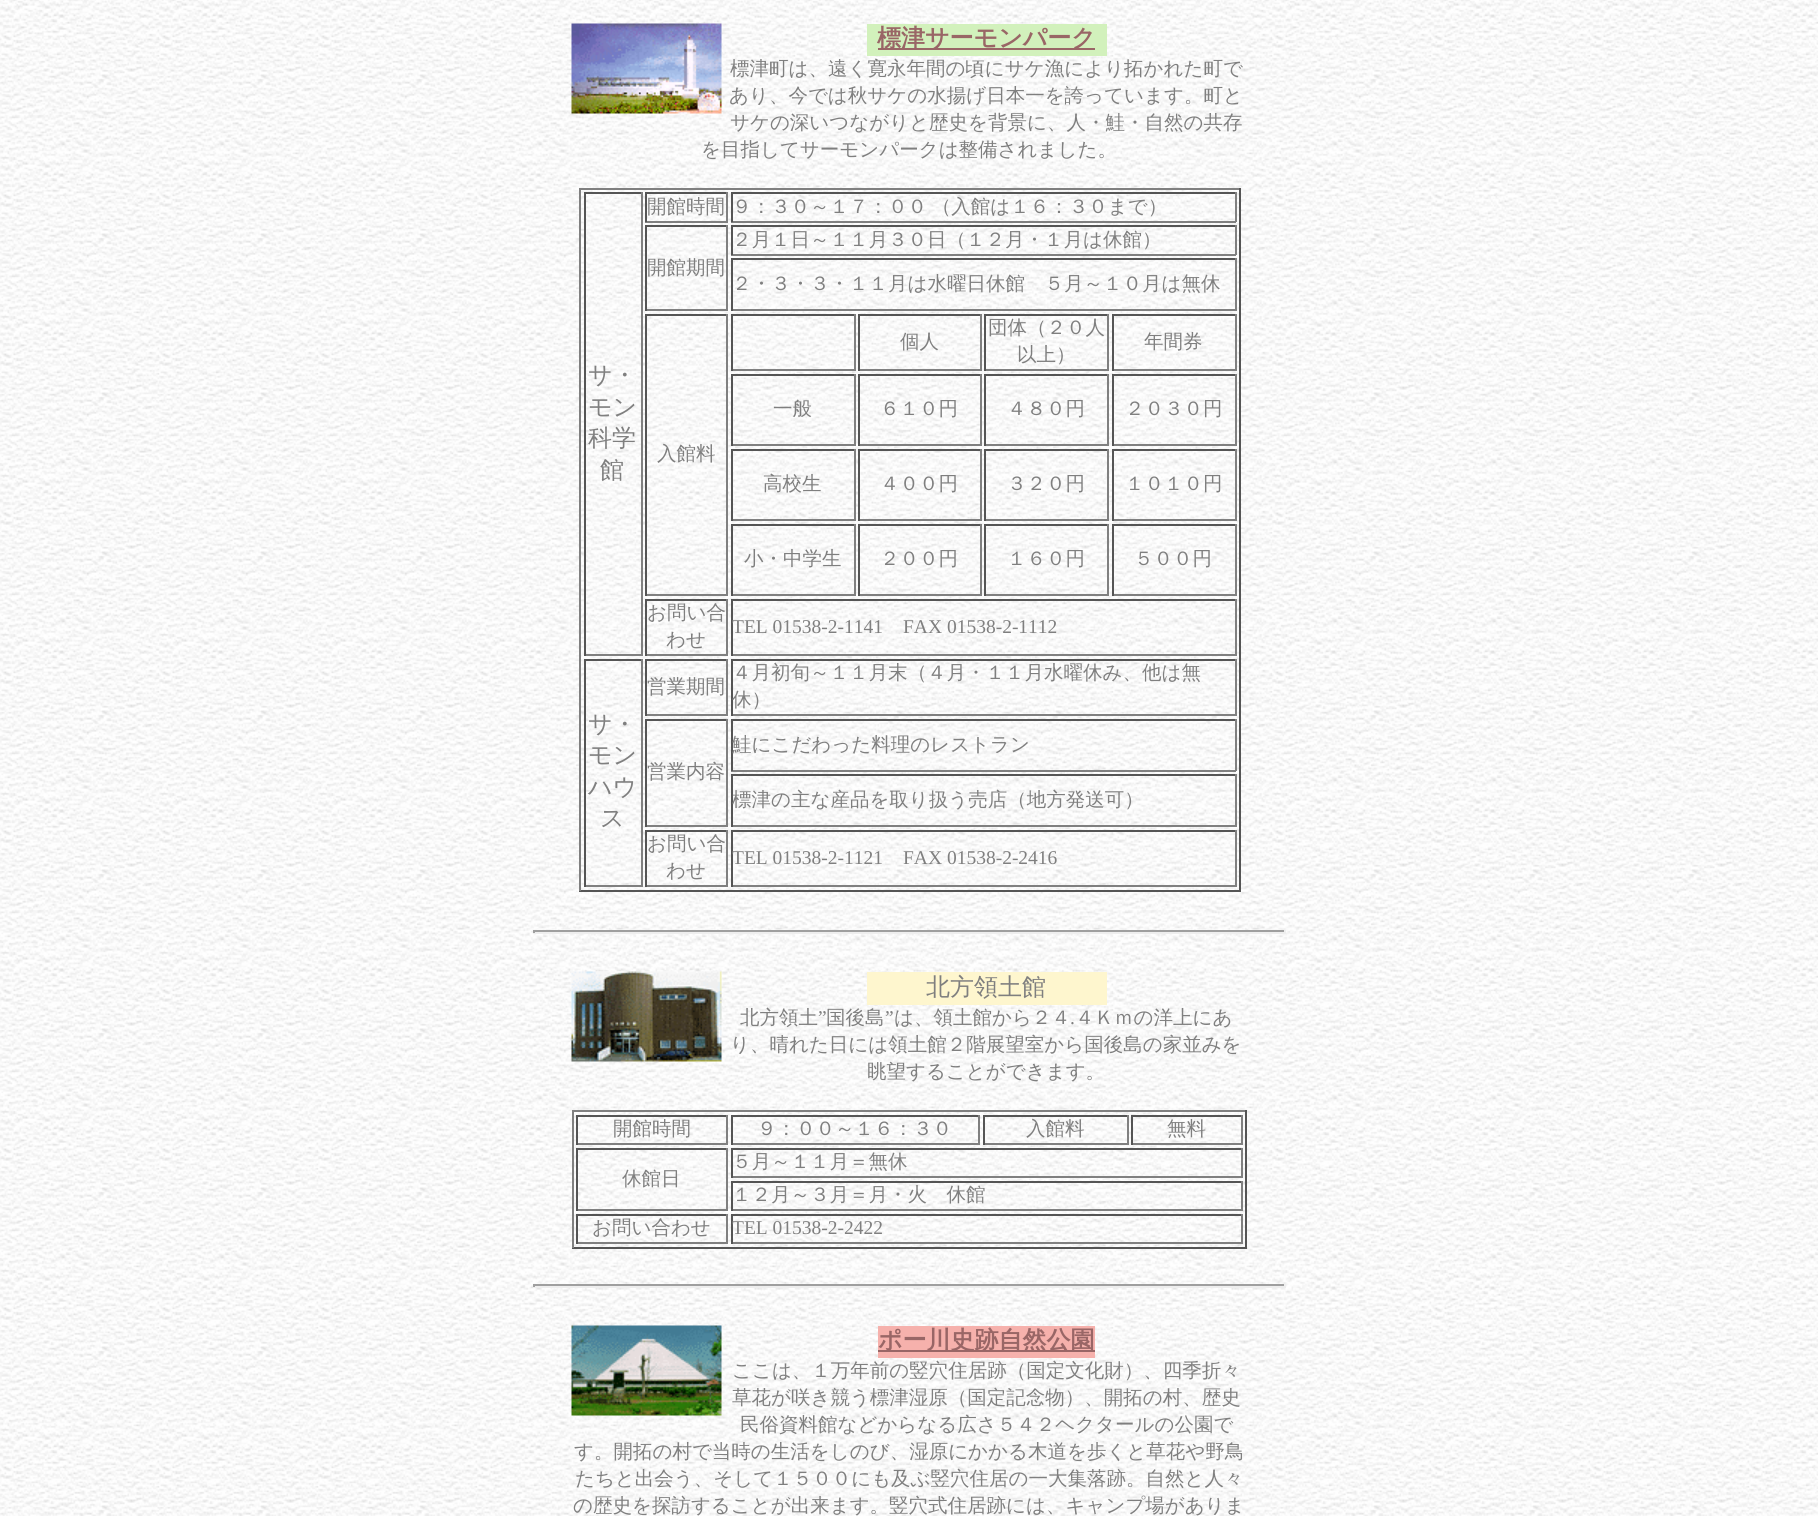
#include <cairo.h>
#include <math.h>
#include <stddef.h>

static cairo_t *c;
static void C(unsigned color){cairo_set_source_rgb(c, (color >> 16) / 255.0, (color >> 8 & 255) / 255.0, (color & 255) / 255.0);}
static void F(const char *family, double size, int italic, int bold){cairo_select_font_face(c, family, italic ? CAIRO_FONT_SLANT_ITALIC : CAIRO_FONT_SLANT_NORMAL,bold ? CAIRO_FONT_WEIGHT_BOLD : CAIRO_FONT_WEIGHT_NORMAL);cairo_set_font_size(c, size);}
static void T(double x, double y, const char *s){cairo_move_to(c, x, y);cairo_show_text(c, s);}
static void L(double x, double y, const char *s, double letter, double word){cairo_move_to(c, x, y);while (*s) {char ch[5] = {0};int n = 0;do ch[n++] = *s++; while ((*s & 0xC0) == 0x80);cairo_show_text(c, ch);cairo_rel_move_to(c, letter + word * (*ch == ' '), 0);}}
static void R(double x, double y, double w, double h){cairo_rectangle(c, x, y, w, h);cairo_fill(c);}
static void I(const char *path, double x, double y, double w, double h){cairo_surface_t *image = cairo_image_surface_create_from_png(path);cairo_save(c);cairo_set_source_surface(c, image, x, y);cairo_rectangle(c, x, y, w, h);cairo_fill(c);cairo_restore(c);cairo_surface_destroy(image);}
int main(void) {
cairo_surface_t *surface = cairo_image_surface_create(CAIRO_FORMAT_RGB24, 1818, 1516);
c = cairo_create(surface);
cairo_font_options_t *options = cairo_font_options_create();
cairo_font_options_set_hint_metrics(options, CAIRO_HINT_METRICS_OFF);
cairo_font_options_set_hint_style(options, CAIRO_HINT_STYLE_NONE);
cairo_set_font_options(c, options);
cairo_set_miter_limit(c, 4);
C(0xffffff);
cairo_paint(c);
I("1.png",0,0,1818,1516);
I("2.png",571,23,151,91);
C(0xd2f1bc);
R(867,24,240,32);
C(0x996666);
R(878,48,217,2);
F("WenQuanYi Zen Hei",24,0,1);
T(877,46,"標津サーモンパーク");
F("WenQuanYi Zen Hei Medium",19.5,0,0);
C(0x7f7f7f);
T(730,75,"標津町は、遠く寛永年間の頃にサケ漁により拓かれた町で");
T(729,102,"あり、今では秋サケの水揚げ日本一を誇っています。町と");
T(730,129,"サケの深いつながりと歴史を背景に、人・鮭・自然の共存");
T(701,156,"を目指してサーモンパークは整備されました。");
C(0x808080);
R(579,188,662,2);
C(0x555555);
R(1239,188,2,703);
R(579,890,662,2);
C(0x808080);
R(579,188,2,703);
C(0x555555);
R(645,192,83,2);
C(0x808080);
R(726,192,2,30);
R(645,221,83,2);
C(0x555555);
R(645,192,2,30);
C(0x7f7f7f);
T(647,213,"開館時間");
C(0x555555);
R(731,192,505,2);
C(0x808080);
R(1235,192,2,30);
R(731,221,505,2);
C(0x555555);
R(731,192,2,30);
C(0x7f7f7f);
L(732,213,"９：３０～１７：００ （入館は１６：３０まで）",0,-1);
C(0x555555);
R(584,192,58,2);
C(0x808080);
R(641,192,2,464);
R(584,654,58,2);
C(0x555555);
R(584,192,2,464);
F("WenQuanYi Zen Hei Medium",24,0,0);
C(0x7f7f7f);
T(588,383,"サ・");
T(588,415,"モン");
T(588,446,"科学");
T(600,478,"館");
C(0x555555);
R(731,225,505,2);
C(0x808080);
R(1235,225,2,30);
R(731,254,505,2);
C(0x555555);
R(731,225,2,30);
F("WenQuanYi Zen Hei Medium",19.5,0,0);
C(0x7f7f7f);
T(732,246,"２月１日～１１月３０日（１２月・１月は休館）");
C(0x555555);
R(645,225,83,2);
C(0x808080);
R(726,225,2,86);
R(645,309,83,2);
C(0x555555);
R(645,225,2,86);
C(0x7f7f7f);
T(647,274,"開館期間");
C(0x555555);
R(731,258,505,2);
C(0x808080);
R(1235,258,2,53);
R(731,309,505,2);
C(0x555555);
R(731,258,2,53);
C(0x7f7f7f);
T(732,290,"２・３・３・１１月は水曜日休館　５月～１０月は無休");
C(0x555555);
R(731,314,124,2);
C(0x808080);
R(854,314,2,57);
R(731,369,124,2);
C(0x555555);
R(731,314,2,57);
R(858,314,123,2);
C(0x808080);
R(980,314,2,57);
R(858,369,123,2);
C(0x555555);
R(858,314,2,57);
C(0x7f7f7f);
T(900,348,"個人");
C(0x555555);
R(984,314,125,2);
C(0x808080);
R(1107,314,2,57);
R(984,369,125,2);
C(0x555555);
R(984,314,2,57);
C(0x7f7f7f);
T(988,334,"団体（２０人");
T(1017,361,"以上）");
C(0x555555);
R(1112,314,124,2);
C(0x808080);
R(1235,314,2,57);
R(1112,369,124,2);
C(0x555555);
R(1112,314,2,57);
C(0x7f7f7f);
T(1144,348,"年間券");
C(0x555555);
R(645,314,83,2);
C(0x808080);
R(726,314,2,282);
R(645,594,83,2);
C(0x555555);
R(645,314,2,282);
C(0x7f7f7f);
T(657,460,"入館料");
C(0x555555);
R(731,374,124,2);
C(0x808080);
R(854,374,2,72);
R(731,444,124,2);
C(0x555555);
R(731,374,2,72);
C(0x7f7f7f);
T(773,415,"一般");
C(0x555555);
R(858,374,123,2);
C(0x808080);
R(980,374,2,72);
R(858,444,123,2);
C(0x555555);
R(858,374,2,72);
C(0x7f7f7f);
T(880,415,"６１０円");
C(0x555555);
R(984,374,125,2);
C(0x808080);
R(1107,374,2,72);
R(984,444,125,2);
C(0x555555);
R(984,374,2,72);
C(0x7f7f7f);
T(1007,415,"４８０円");
C(0x555555);
R(1112,374,124,2);
C(0x808080);
R(1235,374,2,72);
R(1112,444,124,2);
C(0x555555);
R(1112,374,2,72);
C(0x7f7f7f);
T(1125,415,"２０３０円");
C(0x555555);
R(731,449,124,2);
C(0x808080);
R(854,449,2,72);
R(731,519,124,2);
C(0x555555);
R(731,449,2,72);
C(0x7f7f7f);
T(763,490,"高校生");
C(0x555555);
R(858,449,123,2);
C(0x808080);
R(980,449,2,72);
R(858,519,123,2);
C(0x555555);
R(858,449,2,72);
C(0x7f7f7f);
T(880,490,"４００円");
C(0x555555);
R(984,449,125,2);
C(0x808080);
R(1107,449,2,72);
R(984,519,125,2);
C(0x555555);
R(984,449,2,72);
C(0x7f7f7f);
T(1007,490,"３２０円");
C(0x555555);
R(1112,449,124,2);
C(0x808080);
R(1235,449,2,72);
R(1112,519,124,2);
C(0x555555);
R(1112,449,2,72);
C(0x7f7f7f);
T(1125,490,"１０１０円");
C(0x555555);
R(731,524,124,2);
C(0x808080);
R(854,524,2,72);
R(731,594,124,2);
C(0x555555);
R(731,524,2,72);
C(0x7f7f7f);
T(744,565,"小・中学生");
C(0x555555);
R(858,524,123,2);
C(0x808080);
R(980,524,2,72);
R(858,594,123,2);
C(0x555555);
R(858,524,2,72);
C(0x7f7f7f);
T(880,565,"２００円");
C(0x555555);
R(984,524,125,2);
C(0x808080);
R(1107,524,2,72);
R(984,594,125,2);
C(0x555555);
R(984,524,2,72);
C(0x7f7f7f);
T(1007,565,"１６０円");
C(0x555555);
R(1112,524,124,2);
C(0x808080);
R(1235,524,2,72);
R(1112,594,124,2);
C(0x555555);
R(1112,524,2,72);
C(0x7f7f7f);
T(1134,565,"５００円");
C(0x555555);
R(645,599,83,2);
C(0x808080);
R(726,599,2,57);
R(645,654,83,2);
C(0x555555);
R(645,599,2,57);
C(0x7f7f7f);
T(647,619,"お問い合");
T(666,646,"わせ");
C(0x555555);
R(731,599,505,2);
C(0x808080);
R(1235,599,2,57);
R(731,654,505,2);
C(0x555555);
R(731,599,2,57);
F("Liberation Serif",19.5,0,0);
C(0x7f7f7f);
T(732,633,"TEL 01538-2-1141");
T(903,633,"FAX 01538-2-1112");
C(0x555555);
R(645,659,83,2);
C(0x808080);
R(726,659,2,57);
R(645,714,83,2);
C(0x555555);
R(645,659,2,57);
F("WenQuanYi Zen Hei Medium",19.5,0,0);
C(0x7f7f7f);
T(647,693,"営業期間");
C(0x555555);
R(731,659,505,2);
C(0x808080);
R(1235,659,2,57);
R(731,714,505,2);
C(0x555555);
R(731,659,2,57);
C(0x7f7f7f);
T(732,679,"４月初旬～１１月末（４月・１１月水曜休み、他は無");
T(732,706,"休）");
C(0x555555);
R(584,659,58,2);
C(0x808080);
R(641,659,2,228);
R(584,885,58,2);
C(0x555555);
R(584,659,2,228);
F("WenQuanYi Zen Hei Medium",24,0,0);
C(0x7f7f7f);
T(588,732,"サ・");
T(588,763,"モン");
T(588,795,"ハウ");
T(600,826,"ス");
C(0x555555);
R(731,719,505,2);
C(0x808080);
R(1235,719,2,52);
R(731,770,505,2);
C(0x555555);
R(731,719,2,52);
F("WenQuanYi Zen Hei Medium",19.5,0,0);
C(0x7f7f7f);
T(732,751,"鮭にこだわった料理のレストラン");
C(0x555555);
R(645,719,83,2);
C(0x808080);
R(726,719,2,108);
R(645,825,83,2);
C(0x555555);
R(645,719,2,108);
C(0x7f7f7f);
T(647,778,"営業内容");
C(0x555555);
R(731,774,505,2);
C(0x808080);
R(1235,774,2,53);
R(731,825,505,2);
C(0x555555);
R(731,774,2,53);
C(0x7f7f7f);
T(732,806,"標津の主な産品を取り扱う売店（地方発送可）");
C(0x555555);
R(645,830,83,2);
C(0x808080);
R(726,830,2,57);
R(645,885,83,2);
C(0x555555);
R(645,830,2,57);
C(0x7f7f7f);
T(647,850,"お問い合");
T(666,877,"わせ");
C(0x555555);
R(731,830,505,2);
C(0x808080);
R(1235,830,2,57);
R(731,885,505,2);
C(0x555555);
R(731,830,2,57);
F("Liberation Serif",19.5,0,0);
C(0x7f7f7f);
T(732,864,"TEL 01538-2-1121");
T(903,864,"FAX 01538-2-2416");
C(0x9f9f9f);
R(533,930,753,2);
C(0xeeeeee);
R(1284,930,2,3);
R(533,932,753,2);
C(0x9f9f9f);
R(533,930,2,3);
I("3.png",571,971,151,91);
C(0xfef6ce);
R(867,972,240,33);
F("WenQuanYi Zen Hei Medium",24,0,0);
C(0x7f7f7f);
T(926,995,"北方領土館");
F("WenQuanYi Zen Hei Medium",19.5,0,0);
T(740,1024,"北方領土");
F("Liberation Serif",19.5,0,0);
T(818,1024,"”");
F("WenQuanYi Zen Hei Medium",19.5,0,0);
T(826,1024,"国後島");
F("Liberation Serif",19.5,0,0);
T(885,1024,"”");
F("WenQuanYi Zen Hei Medium",19.5,0,0);
T(894,1024,"は、領土館から２４");
T(1075,1024,"４Ｋｍの洋上にあ");
F("Liberation Serif",19.5,0,0);
T(1070,1024,".");
F("WenQuanYi Zen Hei Medium",19.5,0,0);
T(730,1051,"り、晴れた日には領土館２階展望室から国後島の家並みを");
T(867,1078,"眺望することができます。");
C(0x808080);
R(572,1110,675,2);
C(0x555555);
R(1245,1110,2,138);
R(572,1247,675,2);
C(0x808080);
R(572,1110,2,138);
C(0x555555);
R(576,1115,152,2);
C(0x808080);
R(726,1115,2,30);
R(576,1143,152,2);
C(0x555555);
R(576,1115,2,30);
C(0x7f7f7f);
T(613,1135,"開館時間");
C(0x555555);
R(731,1115,249,2);
C(0x808080);
R(978,1115,2,30);
R(731,1143,249,2);
C(0x555555);
R(731,1115,2,30);
C(0x7f7f7f);
T(757,1135,"９：００～１６：３０");
C(0x555555);
R(983,1115,145,2);
C(0x808080);
R(1127,1115,2,30);
R(983,1143,145,2);
C(0x555555);
R(983,1115,2,30);
C(0x7f7f7f);
T(1026,1135,"入館料");
C(0x555555);
R(1131,1115,111,2);
C(0x808080);
R(1241,1115,2,30);
R(1131,1143,111,2);
C(0x555555);
R(1131,1115,2,30);
C(0x7f7f7f);
T(1167,1135,"無料");
C(0x555555);
R(731,1148,511,2);
C(0x808080);
R(1241,1148,2,30);
R(731,1176,511,2);
C(0x555555);
R(731,1148,2,30);
C(0x7f7f7f);
T(732,1168,"５月～１１月＝無休");
C(0x555555);
R(576,1148,152,2);
C(0x808080);
R(726,1148,2,63);
R(576,1209,152,2);
C(0x555555);
R(576,1148,2,63);
C(0x7f7f7f);
T(622,1185,"休館日");
C(0x555555);
R(731,1181,511,2);
C(0x808080);
R(1241,1181,2,30);
R(731,1209,511,2);
C(0x555555);
R(731,1181,2,30);
C(0x7f7f7f);
T(732,1201,"１２月～３月＝月・火　休館");
C(0x555555);
R(576,1214,152,2);
C(0x808080);
R(726,1214,2,30);
R(576,1242,152,2);
C(0x555555);
R(576,1214,2,30);
C(0x7f7f7f);
T(592,1234,"お問い合わせ");
C(0x555555);
R(731,1214,511,2);
C(0x808080);
R(1241,1214,2,30);
R(731,1242,511,2);
C(0x555555);
R(731,1214,2,30);
F("Liberation Serif",19.5,0,0);
C(0x7f7f7f);
T(732,1234,"TEL 01538-2-2422");
C(0x9f9f9f);
R(533,1284,753,2);
C(0xeeeeee);
R(1284,1284,2,3);
R(533,1286,753,2);
C(0x9f9f9f);
R(533,1284,2,3);
I("4.png",571,1325,151,91);
C(0xf6b1ac);
R(878,1326,217,32);
C(0x996666);
R(878,1350,217,2);
F("WenQuanYi Zen Hei",24,0,1);
T(878,1348,"ポー川史跡自然公園");
F("WenQuanYi Zen Hei Medium",19.5,0,0);
C(0x7f7f7f);
T(732,1377,"ここは、１万年前の竪穴住居跡（国定文化財）、四季折々");
T(732,1404,"草花が咲き競う標津湿原（国定記念物）、開拓の村、歴史");
T(740,1431,"民俗資料館などからなる広さ５４２ヘクタールの公園で");
T(574,1458,"す。開拓の村で当時の生活をしのび、湿原にかかる木道を歩くと草花や野鳥");
T(575,1485,"たちと出会う、そして１５００にも及ぶ竪穴住居の一大集落跡。自然と人々");
T(573,1512,"の歴史を探訪することが出来ます。竪穴式住居跡には、キャンプ場がありま");
cairo_surface_write_to_png(surface, "o.png");
cairo_font_options_destroy(options);
cairo_destroy(c);
cairo_surface_destroy(surface);
return 0;
}
